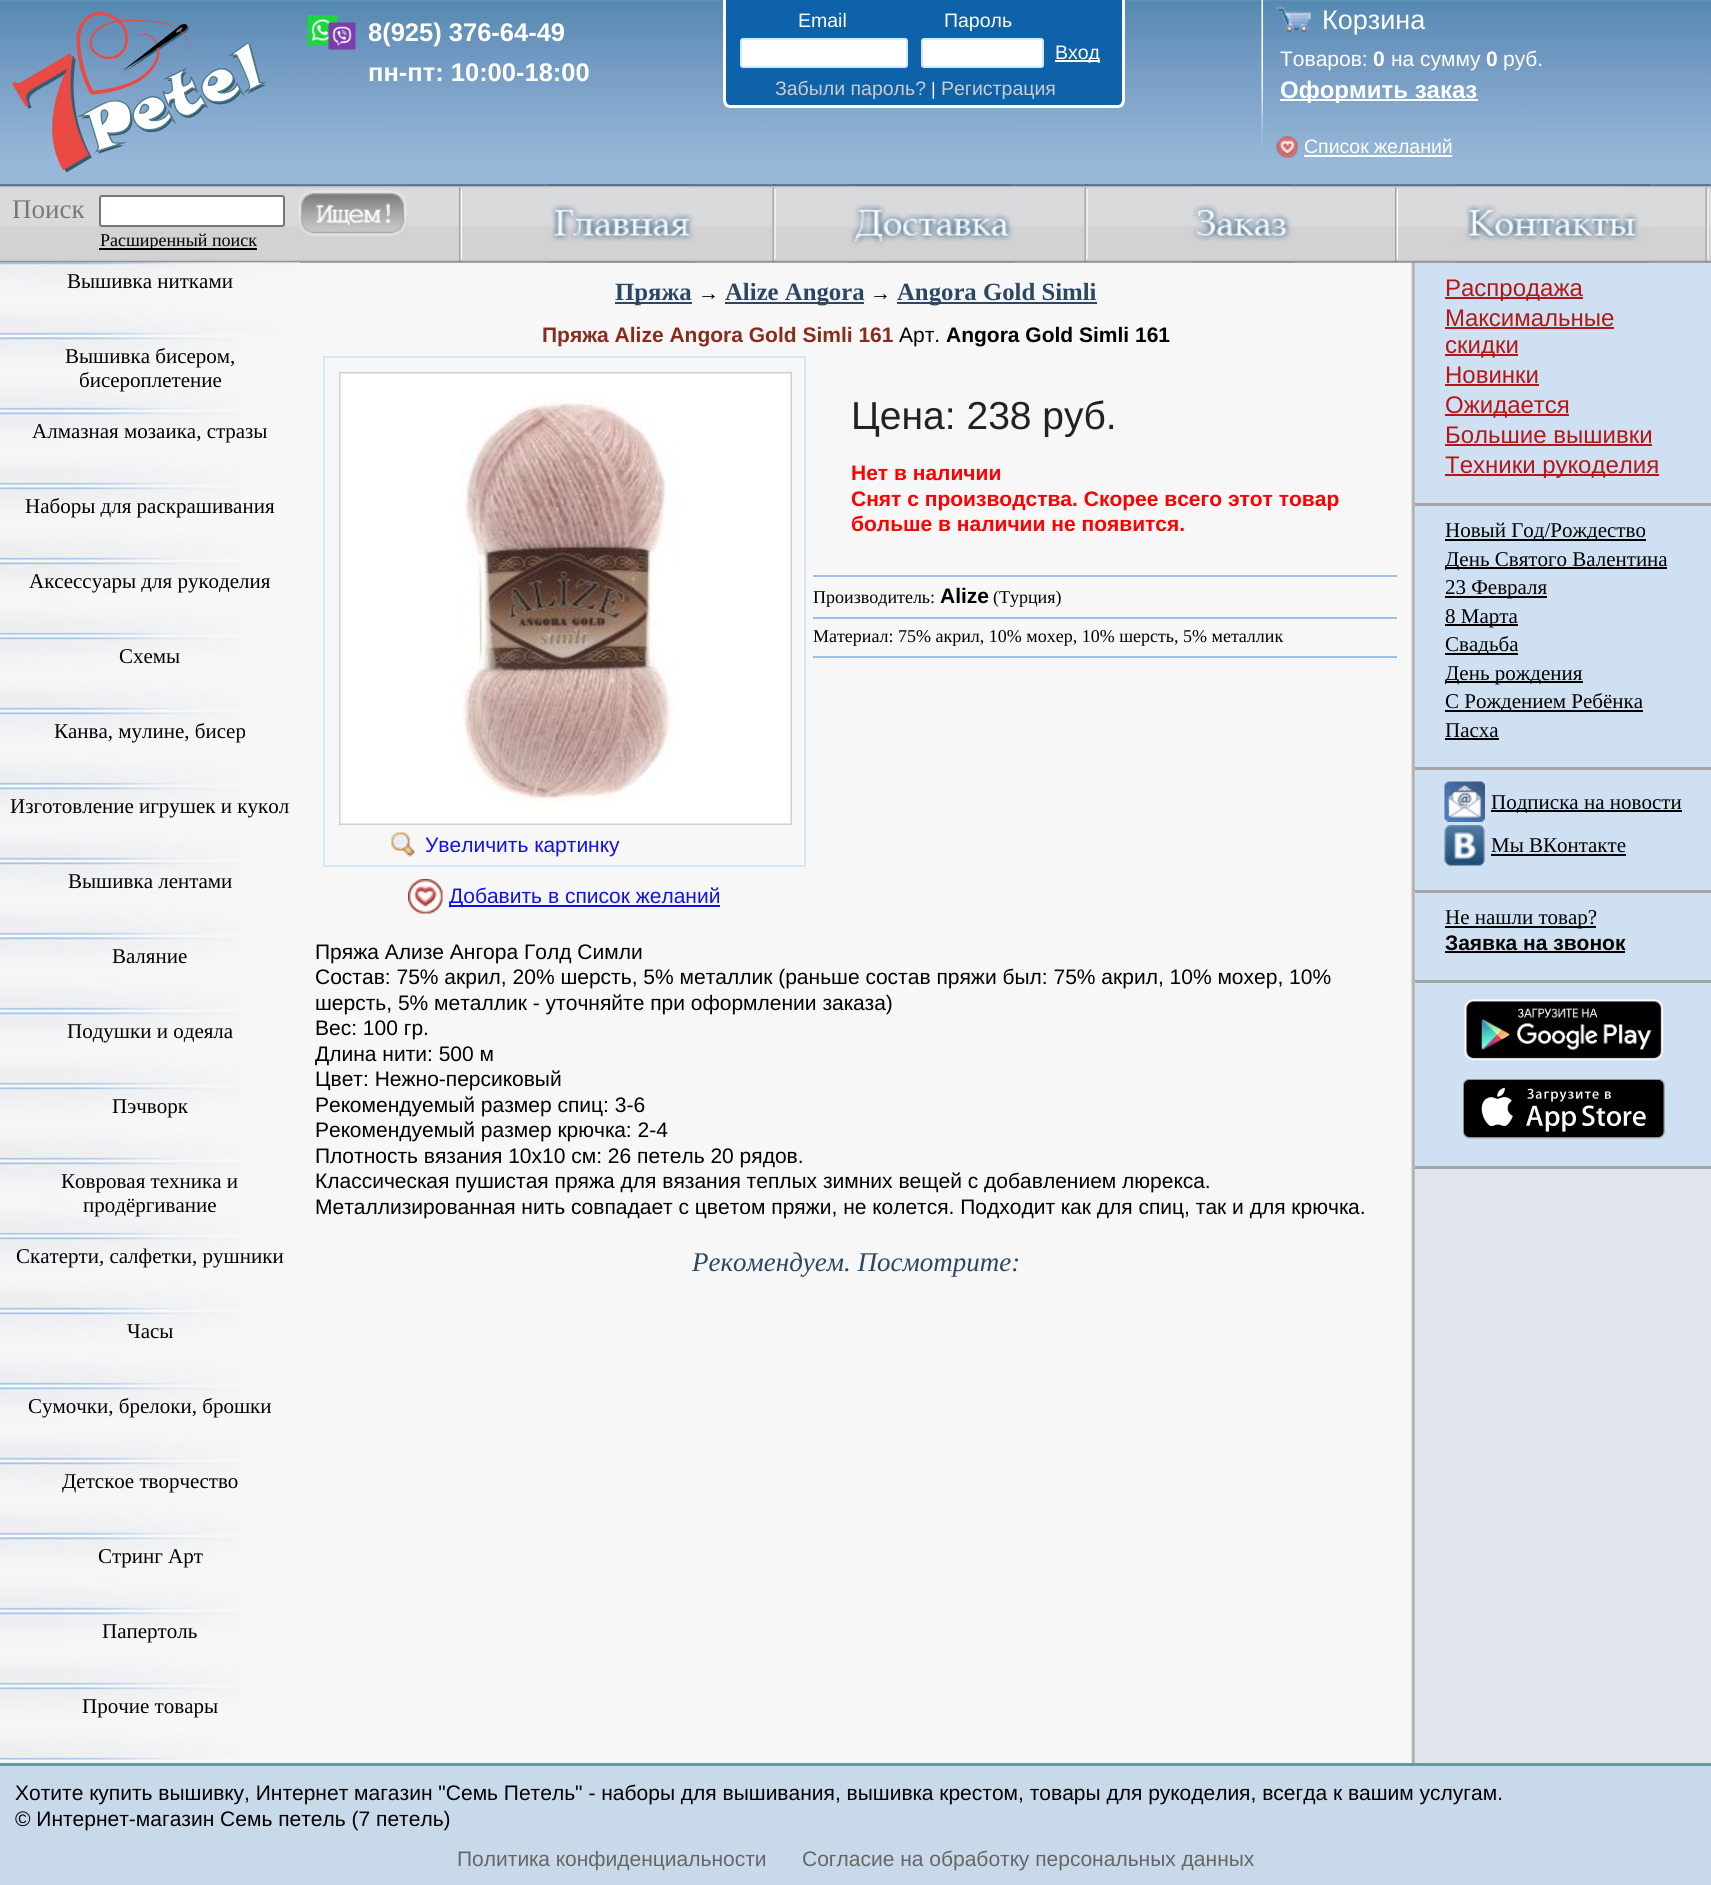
#include <cairo.h>
#include <math.h>
#include <stddef.h>

static cairo_t *c;
static void C(unsigned color){cairo_set_source_rgb(c, (color >> 16) / 255.0, (color >> 8 & 255) / 255.0, (color & 255) / 255.0);}
static void F(const char *family, double size, int italic, int bold){cairo_select_font_face(c, family, italic ? CAIRO_FONT_SLANT_ITALIC : CAIRO_FONT_SLANT_NORMAL,bold ? CAIRO_FONT_WEIGHT_BOLD : CAIRO_FONT_WEIGHT_NORMAL);cairo_set_font_size(c, size);}
static void T(double x, double y, const char *s){cairo_move_to(c, x, y);cairo_show_text(c, s);}
static void R(double x, double y, double w, double h){cairo_rectangle(c, x, y, w, h);cairo_fill(c);}
static void Q(double x, double y, double w, double h, double r){cairo_new_sub_path(c);cairo_arc(c, x + w - r, y + h - r, r, 0, M_PI / 2);cairo_arc(c, x + r, y + h - r, r, M_PI / 2, M_PI);cairo_arc(c, x + r, y + r, r, M_PI, 1.5 * M_PI);cairo_arc(c, x + w - r, y + r, r, 1.5 * M_PI, 2 * M_PI);cairo_close_path(c);}
static void I(const char *path, double x, double y, double w, double h){cairo_surface_t *image = cairo_image_surface_create_from_png(path);cairo_save(c);cairo_set_source_surface(c, image, x, y);cairo_rectangle(c, x, y, w, h);cairo_fill(c);cairo_restore(c);cairo_surface_destroy(image);}
int main(void) {
cairo_surface_t *surface = cairo_image_surface_create(CAIRO_FORMAT_RGB24, 1711, 1885);
c = cairo_create(surface);
cairo_font_options_t *options = cairo_font_options_create();
cairo_font_options_set_hint_metrics(options, CAIRO_HINT_METRICS_OFF);
cairo_font_options_set_hint_style(options, CAIRO_HINT_STYLE_NONE);
cairo_set_font_options(c, options);
cairo_set_miter_limit(c, 4);
C(0xf7f7f7);
cairo_paint(c);
I("1.png",1411,262,300,1501);
I("2.png",0,0,1711,263);
I("3.png",307,15,31,30);
I("4.png",328,22,28,28);
F("Liberation Sans",25.5,0,1);
C(0xffffff);
T(368,41,"8(925) 376-64-49");
T(368,81,"пн-пт: 10:00-18:00");
I("5.png",12,12,255,161);
C(0x0e62aa);
cairo_new_path(c);
cairo_move_to(c,723,0);
cairo_line_to(c,1125,0);
cairo_line_to(c,1125,100);
cairo_curve_to(c,1125,104.5,1121.5,108,1117,108);
cairo_line_to(c,731,108);
cairo_curve_to(c,726.5,108,723,104.5,723,100);
cairo_close_path(c);
cairo_fill(c);
C(0xffffff);
cairo_set_fill_rule(c,CAIRO_FILL_RULE_EVEN_ODD);
cairo_new_path(c);
cairo_move_to(c,723,0);
cairo_line_to(c,1125,0);
cairo_line_to(c,1125,100);
cairo_curve_to(c,1125,105,1122,108,1118,108);
cairo_line_to(c,730,108);
cairo_curve_to(c,726,108,723,105,723,100);
cairo_close_path(c);
cairo_move_to(c,726,0);
cairo_line_to(c,1122,0);
cairo_line_to(c,1122,100);
cairo_curve_to(c,1122,103,1120,105,1118,105);
cairo_line_to(c,730,105);
cairo_curve_to(c,728,105,726,103,726,100);
cairo_close_path(c);
cairo_fill(c);
F("Liberation Sans",19.5,0,0);
T(798,27,"Email");
T(944,27,"Пароль");
Q(741,39,166,28,2);
cairo_fill_preserve(c);
C(0xd3e9f5);
cairo_stroke(c);
C(0xffffff);
Q(922,39,121,28,2);
cairo_fill_preserve(c);
C(0xd3e9f5);
cairo_stroke(c);
C(0xffffff);
R(1055,60,45,2);
T(1055,59,"Вход");
C(0xcccccc);
T(775,95,"Забыли пароль?");
F("Liberation Sans",18,0,0);
C(0xffffff);
T(931,95,"|");
F("Liberation Sans",19.5,0,0);
C(0xcccccc);
T(941,95,"Регистрация");
I("6.png",1261,0,2,151);
I("7.png",1276,6,35,26);
F("Liberation Sans",27,0,0);
C(0xffffff);
T(1322,29,"Корзина");
F("Liberation Sans",21,0,0);
T(1280,66,"Товаров:");
F("Liberation Sans",21,0,1);
T(1373,66,"0");
F("Liberation Sans",21,0,0);
T(1391,66,"на сумму");
F("Liberation Sans",21,0,1);
T(1486,66,"0");
F("Liberation Sans",21,0,0);
T(1503,66,"руб.");
R(1280,99,198,2);
F("Liberation Sans",24,0,1);
T(1280,98,"Оформить заказ");
I("8.png",1276,136,22,22);
F("Liberation Sans",19.5,0,0);
T(1304,153,"Список желаний");
R(1304,155,148,2);
I("9.png",0,184,1711,79);
I("10.png",459,184,3,79);
F("Liberation Serif",27,0,0);
C(0x797979);
T(12,218,"Поиск");
C(0xffffff);
Q(100,196,184,30,2);
cairo_fill_preserve(c);
C(0x767676);
cairo_stroke(c);
I("11.png",297,190,111,47);
C(0x000000);
R(99,248,158,2);
F("Liberation Serif",18,0,0);
T(100,246,"Расширенный поиск");
I("12.png",772,184,4,79);
I("13.png",547,184,148,79);
I("14.png",1084,184,4,79);
I("15.png",849,184,165,79);
I("16.png",1395,184,3,79);
I("17.png",1191,184,102,79);
I("18.png",1705,184,4,79);
I("19.png",1455,184,195,79);
I("20.png",0,262,300,73);
F("Liberation Serif",21,0,0);
T(67,288,"Вышивка нитками");
I("21.png",0,337,240,73);
T(65,363,"Вышивка бисером,");
T(79,387,"бисероплетение");
I("21.png",0,412,240,73);
T(32,438,"Алмазная мозаика, стразы");
I("21.png",0,487,240,73);
T(25,513,"Наборы для раскрашивания");
I("21.png",0,562,240,73);
T(29,588,"Аксессуары для рукоделия");
I("21.png",0,637,240,73);
T(119,663,"Схемы");
I("21.png",0,712,240,73);
T(54,738,"Канва, мулине, бисер");
I("21.png",0,787,240,73);
T(10,813,"Изготовление игрушек и кукол");
I("21.png",0,862,240,73);
T(68,888,"Вышивка лентами");
I("21.png",0,937,240,73);
T(112,963,"Валяние");
I("21.png",0,1012,240,73);
T(67,1038,"Подушки и одеяла");
I("21.png",0,1087,240,73);
T(112,1113,"Пэчворк");
I("21.png",0,1162,240,73);
T(61,1188,"Ковровая техника и");
T(83,1212,"продёргивание");
I("21.png",0,1237,240,73);
T(16,1263,"Скатерти, салфетки, рушники");
I("21.png",0,1312,240,73);
T(127,1338,"Часы");
I("21.png",0,1387,240,73);
T(28,1413,"Сумочки, брелоки, брошки");
I("21.png",0,1462,240,73);
T(62,1488,"Детское творчество");
I("21.png",0,1537,240,73);
T(98,1563,"Стринг Арт");
I("21.png",0,1612,240,73);
T(102,1638,"Папертоль");
I("21.png",0,1687,240,73);
T(82,1713,"Прочие товары");
C(0x2a4764);
R(615,302,77,2);
F("Liberation Serif",24.75,0,1);
T(615,300,"Пряжа");
F("Liberation Sans",21,0,0);
C(0x000000);
T(698,300,"→");
C(0x2a4764);
R(725,302,139,2);
F("Liberation Serif",24.75,0,1);
T(725,300,"Alize Angora");
F("Liberation Sans",21,0,0);
C(0x000000);
T(870,300,"→");
C(0x2a4764);
R(897,302,200,2);
F("Liberation Serif",24.75,0,1);
T(897,300,"Angora Gold Simli");
F("Liberation Sans",21,0,1);
C(0x892c1d);
T(542,342,"Пряжа Alize Angora Gold Simli 161");
F("Liberation Sans",21,0,0);
C(0x000000);
T(899,342,"Арт.");
F("Liberation Sans",21,0,1);
T(946,342,"Angora Gold Simli 161");
F("Liberation Sans",39,0,0);
C(0x222222);
T(851,429,"Цена: 238 руб.");
F("Liberation Sans",21,0,1);
C(0xff0000);
T(851,480,"Нет в наличии");
T(851,506,"Снят с производства. Скорее всего этот товар");
T(851,531,"больше в наличии не появится.");
C(0x9cbfe7);
R(813,575,584,2);
F("Liberation Serif",18,0,0);
C(0x000000);
T(813,603,"Производитель:");
F("Liberation Sans",21,0,1);
T(940,603,"Alize");
F("Liberation Serif",18,0,0);
T(993,603,"(Турция)");
C(0x9cbfe7);
R(813,617,584,2);
C(0x000000);
T(813,642,"Материал: 75% акрил, 10% мохер, 10% шерсть, 5% металлик");
C(0x9cbfe7);
R(813,656,584,2);
cairo_rectangle(c,324,357,481,509);
C(0xd3e9f5);
cairo_stroke(c);
cairo_rectangle(c,340,373,451,451);
C(0xd0d0d0);
cairo_stroke(c);
I("22.png",340,373,451,451);
I("23.png",391,832,24,25);
F("Liberation Sans",21,0,0);
C(0x1111ee);
T(425,852,"Увеличить картинку");
I("24.png",408,879,35,35);
R(449,905,271,2);
T(449,903,"Добавить в список желаний");
C(0x000000);
T(315,959,"Пряжа Ализе Ангора Голд Симли");
T(315,984,"Состав: 75% акрил, 20% шерсть, 5% металлик (раньше состав пряжи был: 75% акрил, 10% мохер, 10%");
T(315,1010,"шерсть, 5% металлик - уточняйте при оформлении заказа)");
T(315,1035,"Вес: 100 гр.");
T(315,1061,"Длина нити: 500 м");
T(315,1086,"Цвет: Нежно-персиковый");
T(315,1112,"Рекомендуемый размер спиц: 3-6");
T(315,1137,"Рекомендуемый размер крючка: 2-4");
T(315,1163,"Плотность вязания 10х10 см: 26 петель 20 рядов.");
T(315,1188,"Классическая пушистая пряжа для вязания теплых зимних вещей с добавлением люрекса.");
T(315,1214,"Металлизированная нить совпадает с цветом пряжи, не колется. Подходит как для спиц, так и для крючка.");
F("Liberation Serif",27,1,0);
C(0x2a4764);
T(692,1271,"Рекомендуем. Посмотрите:");
C(0xcee0f1);
R(1415,263,296,240);
C(0xa5a5a5);
R(1415,503,296,3);
C(0xb51717);
R(1445,297,138,2);
F("Liberation Sans",24,0,0);
T(1445,296,"Распродажа");
T(1445,326,"Максимальные");
R(1445,327,169,2);
R(1445,354,73,2);
T(1445,353,"скидки");
T(1445,383,"Новинки");
R(1445,384,94,2);
R(1445,414,124,2);
T(1445,413,"Ожидается");
T(1445,443,"Большие вышивки");
R(1445,444,207,2);
R(1445,474,214,2);
T(1445,473,"Техники рукоделия");
C(0xcee0f1);
R(1415,506,296,261);
C(0xa5a5a5);
R(1415,767,296,3);
C(0x000000);
R(1445,539,201,2);
F("Liberation Serif",21,0,0);
T(1445,537,"Новый Год/Рождество");
R(1445,567,222,2);
T(1445,566,"День Святого Валентина");
R(1445,596,102,2);
T(1445,594,"23 Февраля");
R(1445,624,73,2);
T(1445,623,"8 Марта");
R(1445,653,73,2);
T(1445,651,"Свадьба");
R(1445,681,138,2);
T(1445,680,"День рождения");
R(1445,710,198,2);
T(1445,708,"С Рождением Ребёнка");
T(1445,737,"Пасха");
R(1445,738,54,2);
C(0xcee0f1);
R(1415,770,296,120);
C(0xa5a5a5);
R(1415,890,296,3);
I("25.png",1444,781,41,41);
C(0x000000);
R(1491,810,191,2);
T(1491,809,"Подписка на новости");
I("26.png",1444,825,41,41);
T(1491,852,"Мы ВКонтакте");
R(1491,854,135,2);
C(0xcee0f1);
R(1415,893,296,87);
C(0xa5a5a5);
R(1415,980,296,3);
C(0x000000);
R(1445,926,151,2);
T(1445,924,"Не нашли товар?");
F("Liberation Sans",21,0,1);
T(1445,950,"Заявка на звонок");
R(1445,951,180,2);
C(0xcee0f1);
R(1415,983,296,183);
C(0xa5a5a5);
R(1415,1166,296,3);
I("27.png",1464,999,200,62);
I("28.png",1463,1079,202,60);
C(0xc8d9e9);
R(0,1766,1711,119);
C(0x55a1a1);
R(0,1763,1711,3);
F("Liberation Sans",21,0,0);
C(0x000000);
T(15,1800,"Хотите купить вышивку, Интернет магазин \"Семь Петель\" - наборы для вышивания, вышивка крестом, товары для рукоделия, всегда к вашим услугам.");
T(15,1826,"© Интернет-магазин Семь петель (7 петель)");
C(0x666666);
T(457,1866,"Политика конфиденциальности");
T(802,1866,"Согласие на обработку персональных данных");
cairo_surface_write_to_png(surface, "o.png");
cairo_font_options_destroy(options);
cairo_destroy(c);
cairo_surface_destroy(surface);
return 0;
}
